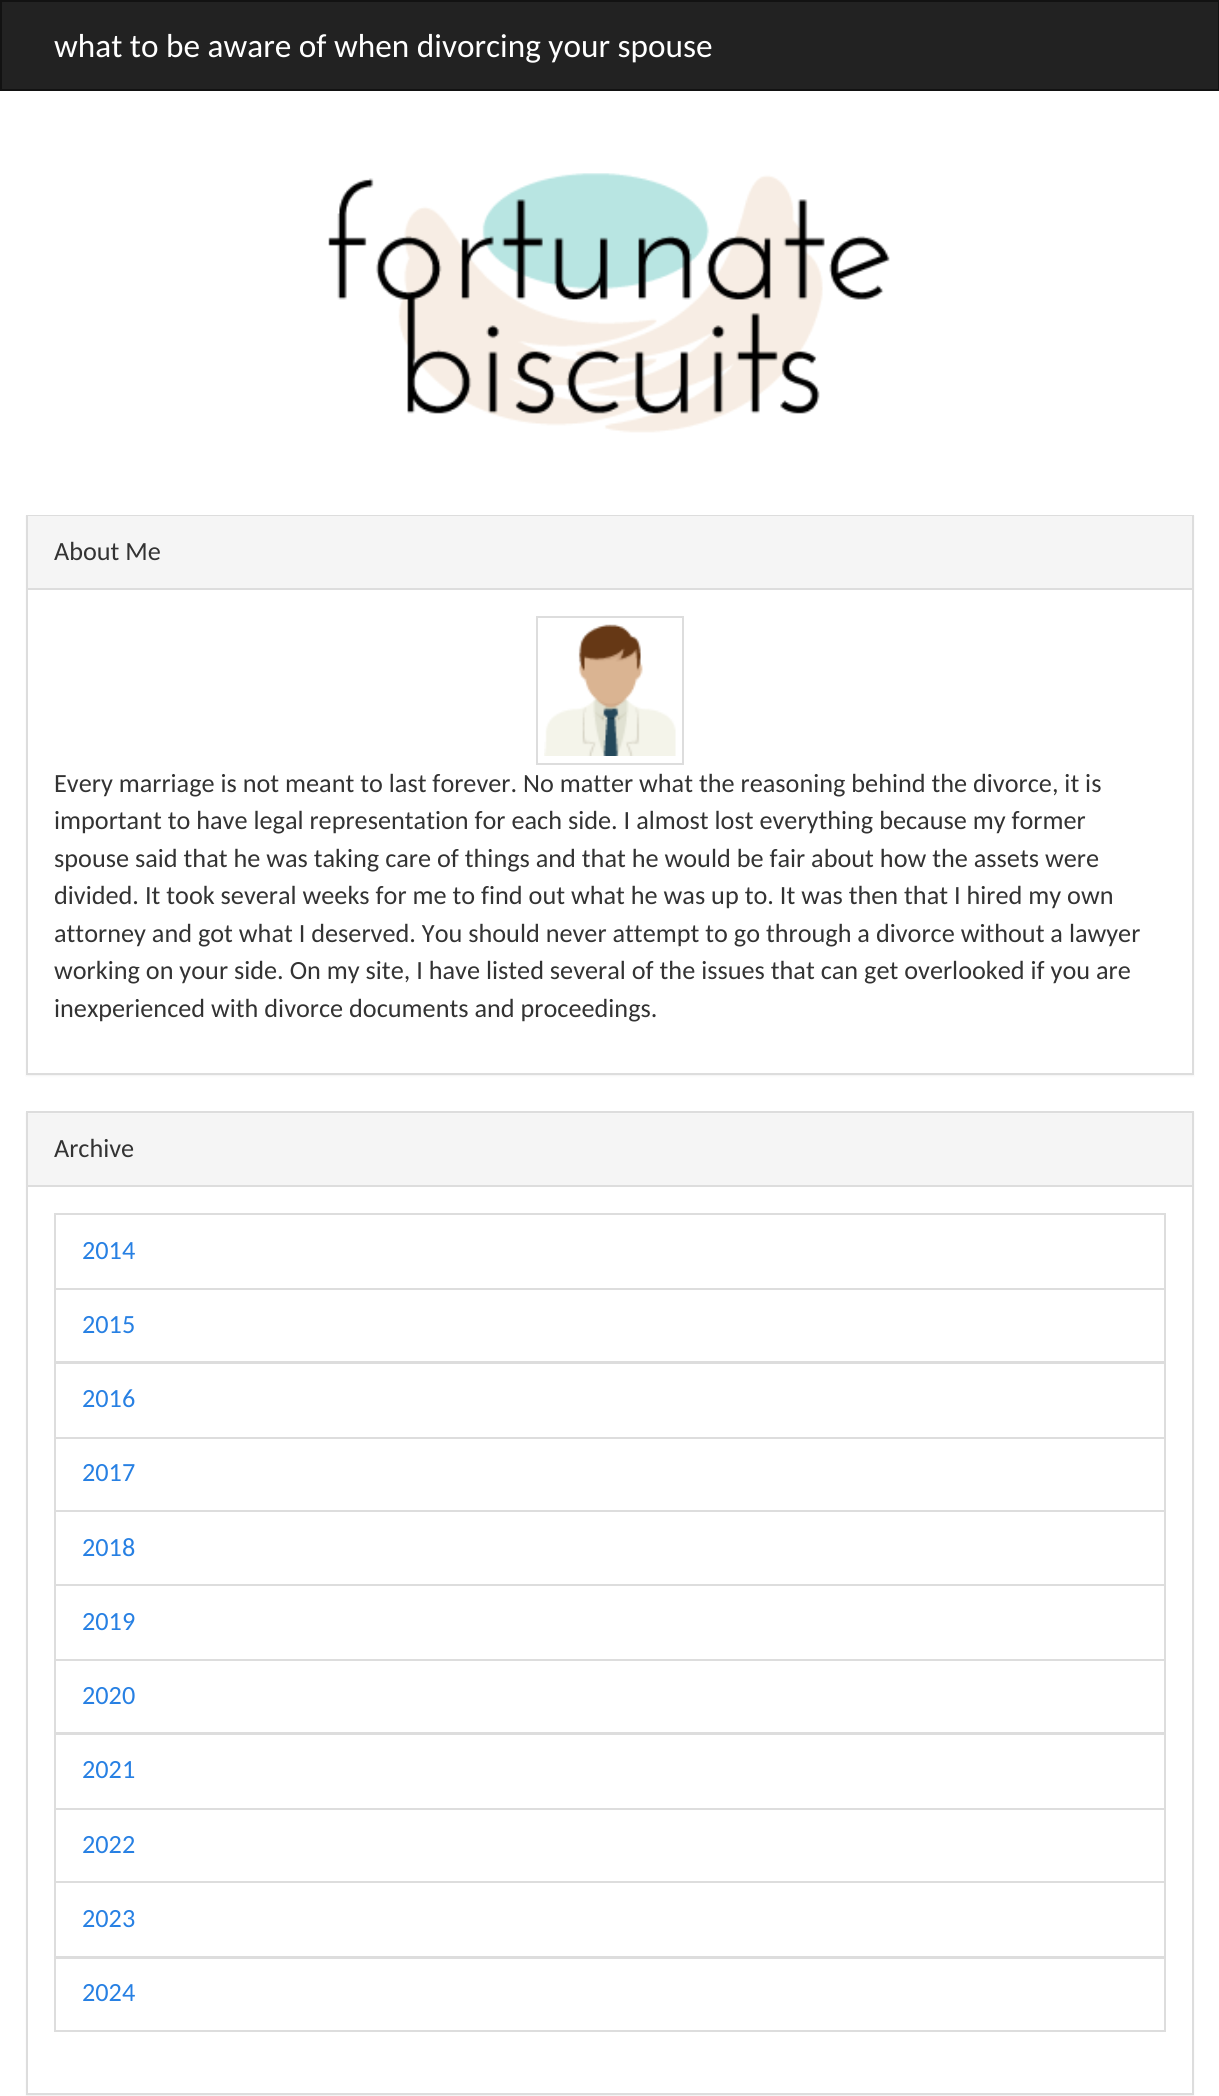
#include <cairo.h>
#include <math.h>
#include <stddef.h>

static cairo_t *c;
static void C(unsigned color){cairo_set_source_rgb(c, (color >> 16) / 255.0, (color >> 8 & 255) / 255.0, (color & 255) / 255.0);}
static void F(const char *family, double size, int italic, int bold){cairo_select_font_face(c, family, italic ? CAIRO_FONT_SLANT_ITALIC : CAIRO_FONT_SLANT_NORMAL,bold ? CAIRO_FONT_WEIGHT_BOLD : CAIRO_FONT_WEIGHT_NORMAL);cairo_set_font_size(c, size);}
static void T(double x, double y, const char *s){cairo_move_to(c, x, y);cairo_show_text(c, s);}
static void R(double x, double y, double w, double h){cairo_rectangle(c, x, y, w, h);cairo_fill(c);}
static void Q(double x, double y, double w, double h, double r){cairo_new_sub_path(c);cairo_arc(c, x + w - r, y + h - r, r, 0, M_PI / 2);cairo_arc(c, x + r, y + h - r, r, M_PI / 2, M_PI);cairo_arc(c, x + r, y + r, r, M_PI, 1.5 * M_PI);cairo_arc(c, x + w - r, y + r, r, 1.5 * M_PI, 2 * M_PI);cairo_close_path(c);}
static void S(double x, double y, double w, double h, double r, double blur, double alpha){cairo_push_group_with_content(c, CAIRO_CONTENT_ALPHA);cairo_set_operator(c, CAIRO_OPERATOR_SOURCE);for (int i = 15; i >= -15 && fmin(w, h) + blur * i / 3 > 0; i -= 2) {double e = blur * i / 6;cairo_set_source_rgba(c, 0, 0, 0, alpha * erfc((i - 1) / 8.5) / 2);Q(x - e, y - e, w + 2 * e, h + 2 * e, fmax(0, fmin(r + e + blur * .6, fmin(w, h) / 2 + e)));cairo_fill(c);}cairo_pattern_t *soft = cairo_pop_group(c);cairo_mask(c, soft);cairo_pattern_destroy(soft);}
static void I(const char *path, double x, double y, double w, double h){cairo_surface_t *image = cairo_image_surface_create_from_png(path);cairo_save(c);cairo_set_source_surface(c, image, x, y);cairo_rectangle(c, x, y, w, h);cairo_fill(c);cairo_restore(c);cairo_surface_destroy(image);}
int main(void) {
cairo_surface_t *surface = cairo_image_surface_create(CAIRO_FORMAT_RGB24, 1219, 2096);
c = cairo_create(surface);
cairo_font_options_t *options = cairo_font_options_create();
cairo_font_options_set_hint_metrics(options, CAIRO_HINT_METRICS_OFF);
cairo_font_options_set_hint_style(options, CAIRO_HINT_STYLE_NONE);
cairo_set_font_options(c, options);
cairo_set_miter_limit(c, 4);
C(0xffffff);
cairo_paint(c);
C(0x222222);
cairo_rectangle(c,1,1,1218,89);
cairo_fill_preserve(c);
C(0x121212);
cairo_stroke(c);
F("Carlito",33.25,0,0);
C(0xffffff);
T(54,57,"what to be aware of when divorcing your spouse");
I("1.png",328,173,562,260);
C(0x000000);
S(26,516,1168,560,0,1,.05);
C(0xffffff);
R(28,590,1164,483);
cairo_rectangle(c,27,516,1166,558);
C(0xdddddd);
cairo_stroke(c);
C(0xf5f5f5);
R(28,516,1164,72);
C(0xdddddd);
R(28,588,1164,2);
F("Carlito",26.25,0,0);
C(0x333333);
T(54,560,"About Me");
cairo_rectangle(c,537,617,146,147);
C(0xdddddd);
cairo_stroke(c);
I("2.png",544,624,132,132);
C(0x333333);
T(54,792,"Every marriage is not meant to last forever. No matter what the reasoning behind the divorce, it is");
T(54,829,"important to have legal representation for each side. I almost lost everything because my former");
T(54,867,"spouse said that he was taking care of things and that he would be fair about how the assets were");
T(54,904,"divided. It took several weeks for me to find out what he was up to. It was then that I hired my own");
T(54,942,"attorney and got what I deserved. You should never attempt to go through a divorce without a lawyer");
T(54,979,"working on your side. On my site, I have listed several of the issues that can get overlooked if you are");
T(54,1017,"inexperienced with divorce documents and proceedings.");
C(0x000000);
S(26,1113,1168,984,0,1,.05);
C(0xffffff);
R(28,1187,1164,906);
cairo_rectangle(c,27,1112,1166,982);
C(0xdddddd);
cairo_stroke(c);
C(0xf5f5f5);
R(28,1115,1164,70);
C(0xdddddd);
R(28,1185,1164,2);
C(0x333333);
T(54,1157,"Archive");
cairo_rectangle(c,55,1214,1110,75);
C(0xdddddd);
cairo_stroke(c);
C(0x2780e3);
T(82,1259,"2014");
cairo_rectangle(c,55,1289,1110,73);
C(0xdddddd);
cairo_stroke(c);
C(0x2780e3);
T(82,1333,"2015");
cairo_rectangle(c,55,1363,1110,75);
C(0xdddddd);
cairo_stroke(c);
C(0x2780e3);
T(82,1407,"2016");
cairo_rectangle(c,55,1438,1110,73);
C(0xdddddd);
cairo_stroke(c);
C(0x2780e3);
T(82,1481,"2017");
cairo_rectangle(c,55,1511,1110,74);
C(0xdddddd);
cairo_stroke(c);
C(0x2780e3);
T(82,1556,"2018");
cairo_rectangle(c,55,1585,1110,75);
C(0xdddddd);
cairo_stroke(c);
C(0x2780e3);
T(82,1630,"2019");
cairo_rectangle(c,55,1660,1110,73);
C(0xdddddd);
cairo_stroke(c);
C(0x2780e3);
T(82,1704,"2020");
cairo_rectangle(c,55,1734,1110,75);
C(0xdddddd);
cairo_stroke(c);
C(0x2780e3);
T(82,1778,"2021");
cairo_rectangle(c,55,1809,1110,73);
C(0xdddddd);
cairo_stroke(c);
C(0x2780e3);
T(82,1853,"2022");
cairo_rectangle(c,55,1882,1110,75);
C(0xdddddd);
cairo_stroke(c);
C(0x2780e3);
T(82,1927,"2023");
cairo_rectangle(c,55,1958,1110,73);
C(0xdddddd);
cairo_stroke(c);
C(0x2780e3);
T(82,2001,"2024");
cairo_surface_write_to_png(surface, "o.png");
cairo_font_options_destroy(options);
cairo_destroy(c);
cairo_surface_destroy(surface);
return 0;
}
